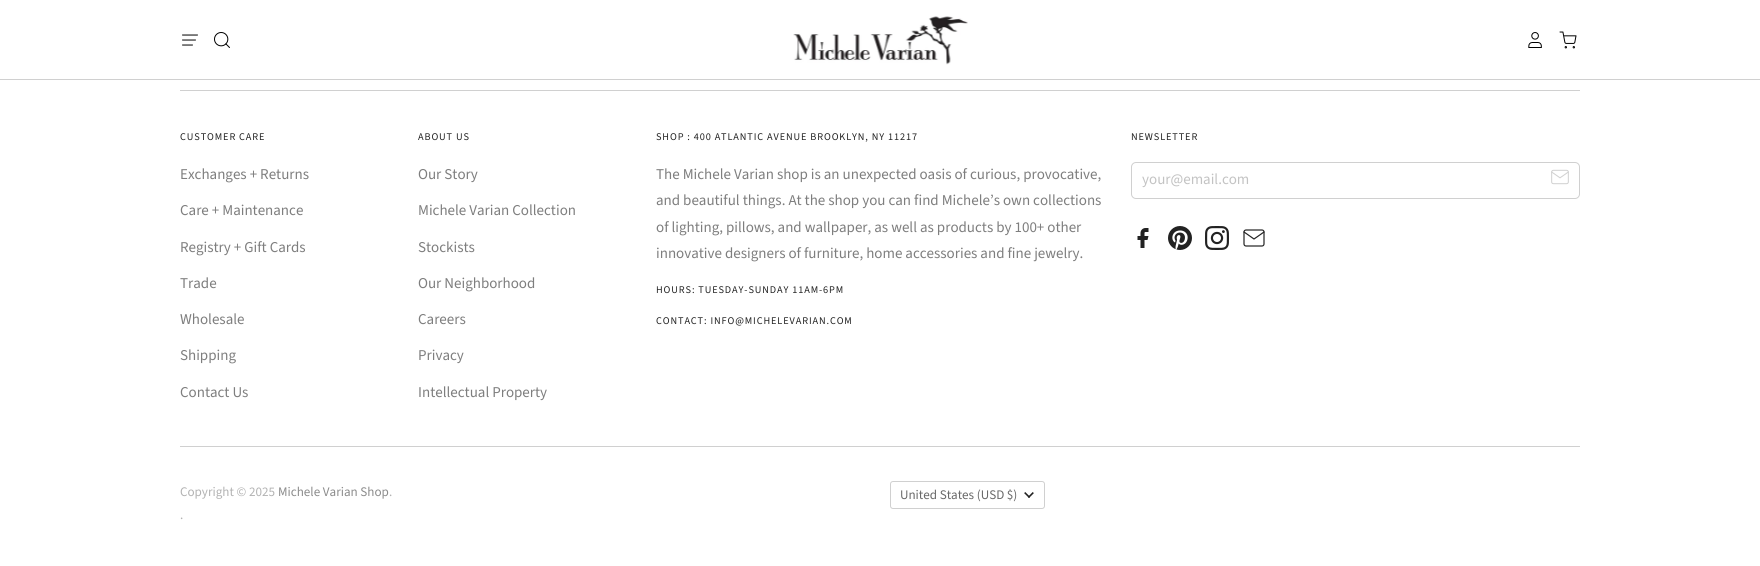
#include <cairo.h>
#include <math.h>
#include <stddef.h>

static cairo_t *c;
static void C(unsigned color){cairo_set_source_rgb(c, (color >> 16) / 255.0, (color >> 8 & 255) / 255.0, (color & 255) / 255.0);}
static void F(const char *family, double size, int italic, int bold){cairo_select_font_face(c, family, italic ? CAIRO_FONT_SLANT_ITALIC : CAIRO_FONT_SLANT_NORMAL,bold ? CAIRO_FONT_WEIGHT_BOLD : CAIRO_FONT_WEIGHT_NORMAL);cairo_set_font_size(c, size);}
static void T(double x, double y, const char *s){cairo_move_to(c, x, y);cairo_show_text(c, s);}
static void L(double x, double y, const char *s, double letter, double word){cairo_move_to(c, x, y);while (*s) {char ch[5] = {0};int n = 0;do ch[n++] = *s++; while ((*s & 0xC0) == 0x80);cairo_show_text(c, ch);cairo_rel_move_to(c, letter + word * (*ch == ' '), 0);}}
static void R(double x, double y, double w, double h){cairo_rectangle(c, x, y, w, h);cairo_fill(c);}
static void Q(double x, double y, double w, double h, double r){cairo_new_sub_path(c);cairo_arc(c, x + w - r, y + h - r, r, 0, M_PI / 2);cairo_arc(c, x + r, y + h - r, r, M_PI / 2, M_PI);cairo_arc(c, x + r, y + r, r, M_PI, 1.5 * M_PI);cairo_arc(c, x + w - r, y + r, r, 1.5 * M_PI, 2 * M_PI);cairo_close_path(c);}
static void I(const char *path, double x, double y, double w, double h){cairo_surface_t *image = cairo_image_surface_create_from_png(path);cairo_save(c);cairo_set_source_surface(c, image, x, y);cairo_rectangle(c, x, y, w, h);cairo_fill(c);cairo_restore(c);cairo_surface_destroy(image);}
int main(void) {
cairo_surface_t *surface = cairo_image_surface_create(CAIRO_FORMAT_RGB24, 1760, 566);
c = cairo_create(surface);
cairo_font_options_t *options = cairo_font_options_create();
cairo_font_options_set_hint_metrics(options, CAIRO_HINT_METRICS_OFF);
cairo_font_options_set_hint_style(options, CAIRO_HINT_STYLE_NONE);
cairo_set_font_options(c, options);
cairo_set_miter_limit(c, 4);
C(0xffffff);
cairo_paint(c);
C(0xd0d0d0);
R(0,79,1760,1);
I("1.png",182,34,16,12);
I("2.png",214,32,16,16);
I("3.png",793,16,175,49);
I("4.png",1528,32,14,16);
I("5.png",1559,31,18,18);
R(180,90,1400,1);
F("Source Sans Pro",10.25,0,0);
C(0x222222);
L(180,140,"CUSTOMER CARE",.9,0);
F("Source Sans Pro",15,0,0);
C(0x7e7e7e);
T(180,179,"Exchanges + Returns");
T(180,215,"Care + Maintenance");
T(180,252,"Registry + Gift Cards");
T(180,288,"Trade");
T(180,324,"Wholesale");
T(180,360,"Shipping");
T(180,397,"Contact Us");
F("Source Sans Pro",10.25,0,0);
C(0x222222);
L(418,140,"ABOUT US",.9,0);
F("Source Sans Pro",15,0,0);
C(0x7e7e7e);
T(418,179,"Our Story");
T(418,215,"Michele Varian Collection");
T(418,252,"Stockists");
T(418,288,"Our Neighborhood");
T(418,324,"Careers");
T(418,360,"Privacy");
T(418,397,"Intellectual Property");
F("Source Sans Pro",10.25,0,0);
C(0x222222);
L(656,140,"SHOP : 400 ATLANTIC AVENUE BROOKLYN, NY 11217",.9,0);
F("Source Sans Pro",15,0,0);
C(0x7e7e7e);
T(656,179,"The Michele Varian shop is an unexpected oasis of curious, provocative,");
T(656,205,"and beautiful things. At the shop you can find Michele’s own collections");
T(656,232,"of lighting, pillows, and wallpaper, as well as products by 100+ other");
T(656,258,"innovative designers of furniture, home accessories and fine jewelry.");
F("Source Sans Pro",10.25,0,0);
C(0x222222);
L(656,293,"HOURS: TUESDAY-SUNDAY 11AM-6PM",.9,0);
L(656,324,"CONTACT: INFO@MICHELEVARIAN.COM",.9,0);
L(1131,140,"NEWSLETTER",.9,0);
Q(1131.5,162.5,448,36,4.5);
C(0xd0d0d0);
cairo_set_line_width(c,1);
cairo_stroke(c);
F("Source Sans Pro",15,0,0);
C(0xc3c3c3);
T(1142,184,"your@email.com");
I("6.png",1551,169,18,16);
I("7.png",1137,228,12,20);
I("8.png",1168,226,24,24);
I("9.png",1205,226,24,24);
I("10.png",1243,229,22,18);
C(0xd0d0d0);
R(180,446,1400,1);
F("Source Sans Pro",13.1,0,0);
C(0xb2b2b2);
T(180,496,"Copyright © 2025");
C(0x8b8b8b);
T(278,496,"Michele Varian Shop");
C(0xb2b2b2);
T(389,496,".");
T(180,519,".");
Q(890.5,481.5,154,27,2.5);
C(0xd0d0d0);
cairo_stroke(c);
C(0x686868);
T(900,499,"United States (USD $)");
I("11.png",1024,492,10,6);
cairo_surface_write_to_png(surface, "o.png");
cairo_font_options_destroy(options);
cairo_destroy(c);
cairo_surface_destroy(surface);
return 0;
}
